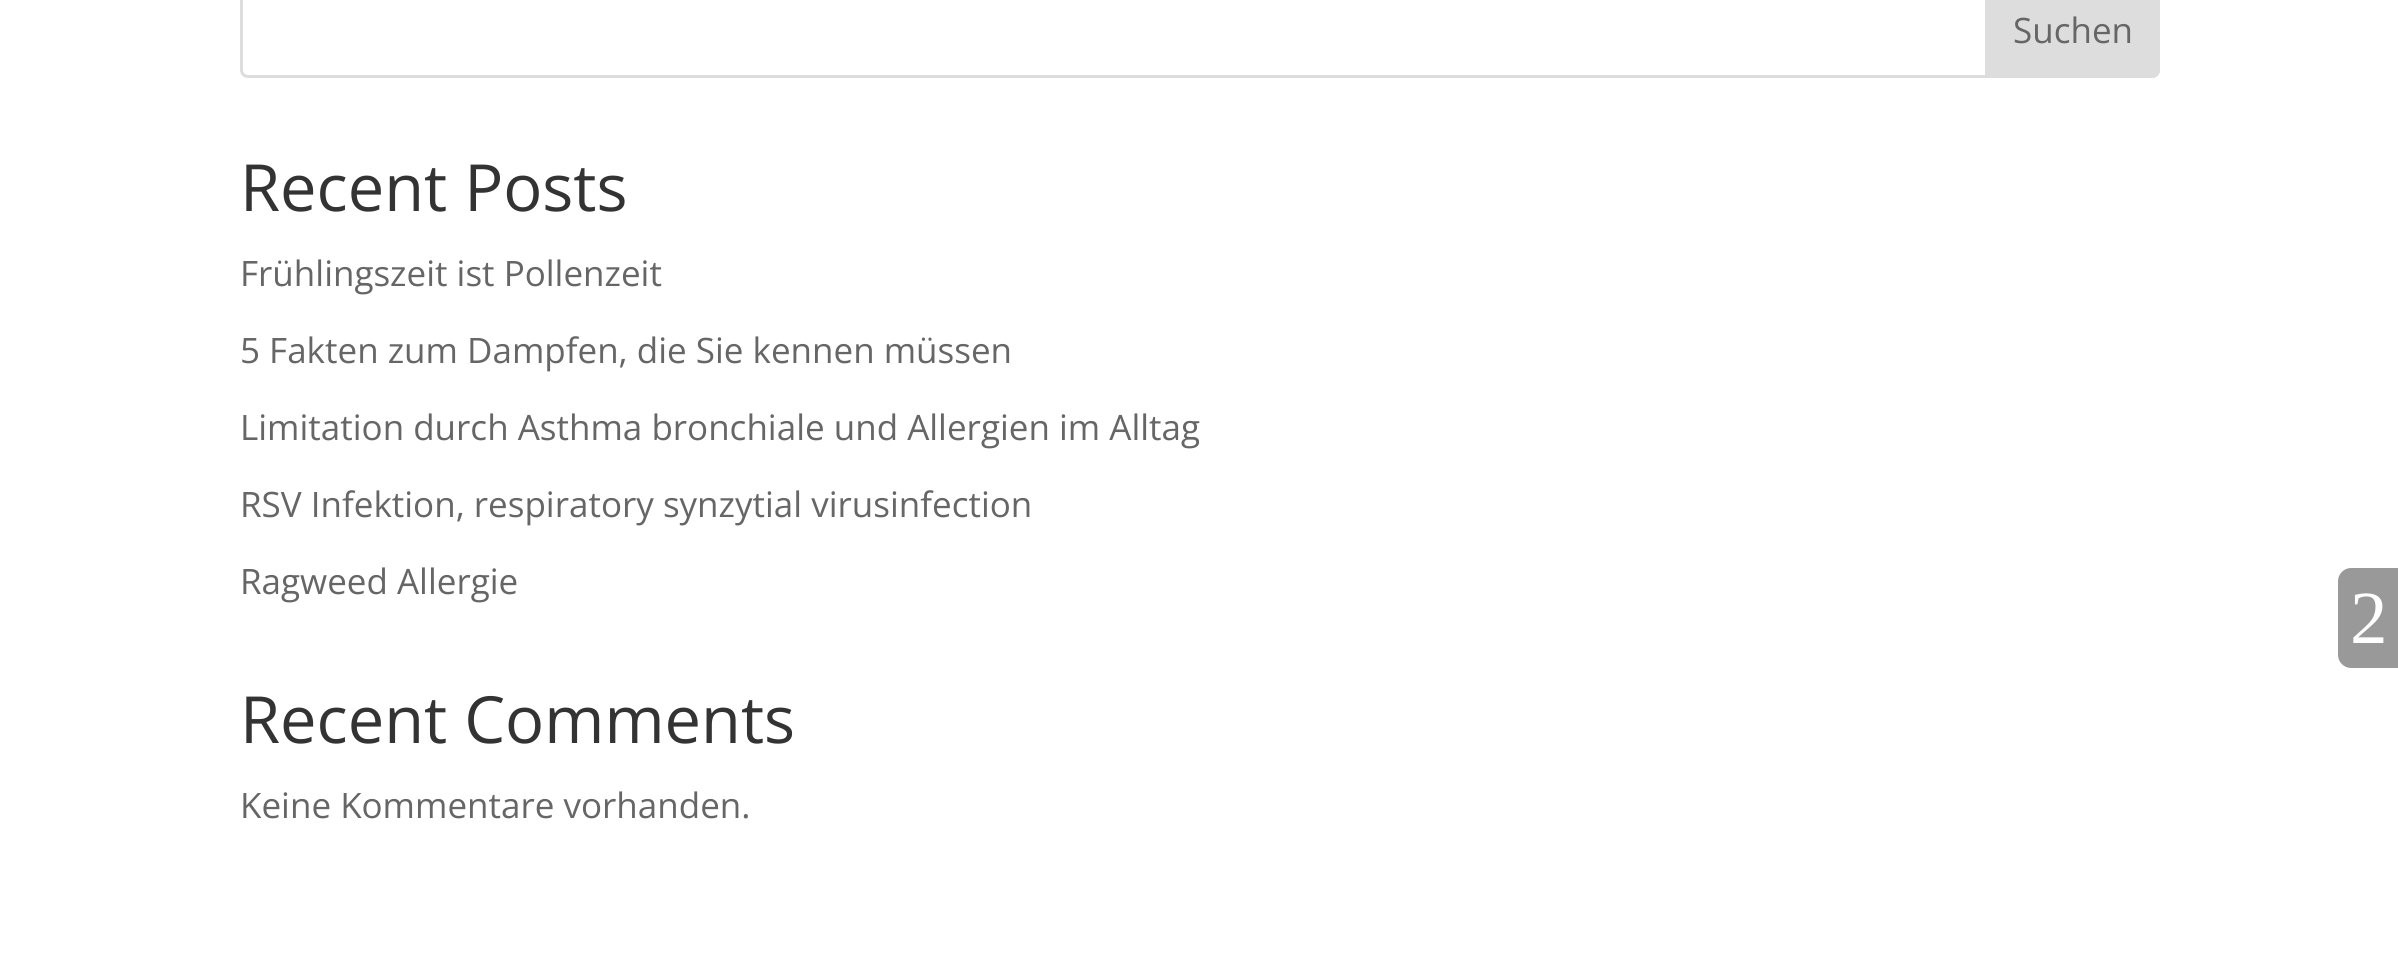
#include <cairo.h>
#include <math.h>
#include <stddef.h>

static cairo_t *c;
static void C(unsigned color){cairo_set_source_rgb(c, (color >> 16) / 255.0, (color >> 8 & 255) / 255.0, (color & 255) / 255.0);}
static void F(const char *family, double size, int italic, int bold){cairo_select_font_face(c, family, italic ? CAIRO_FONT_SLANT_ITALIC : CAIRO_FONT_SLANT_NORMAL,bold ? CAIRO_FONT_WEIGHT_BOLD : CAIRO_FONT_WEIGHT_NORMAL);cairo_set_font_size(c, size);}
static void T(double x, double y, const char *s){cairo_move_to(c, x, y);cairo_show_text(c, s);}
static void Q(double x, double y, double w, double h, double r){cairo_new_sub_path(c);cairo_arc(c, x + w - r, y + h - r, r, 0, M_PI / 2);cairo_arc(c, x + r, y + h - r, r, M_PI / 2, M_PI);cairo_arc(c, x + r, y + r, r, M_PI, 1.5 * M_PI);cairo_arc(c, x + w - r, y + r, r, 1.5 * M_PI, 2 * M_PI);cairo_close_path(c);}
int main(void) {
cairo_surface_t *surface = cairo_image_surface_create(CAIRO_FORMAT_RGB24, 2398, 978);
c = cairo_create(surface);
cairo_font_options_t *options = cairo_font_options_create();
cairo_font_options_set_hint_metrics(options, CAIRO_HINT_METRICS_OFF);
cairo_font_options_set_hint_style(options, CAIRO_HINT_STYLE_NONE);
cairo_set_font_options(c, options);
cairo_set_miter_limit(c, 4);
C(0xffffff);
cairo_paint(c);
Q(241.5,-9.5,1917,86,6.5);
C(0xdddddd);
cairo_set_line_width(c,3);
cairo_stroke(c);
cairo_new_path(c);
cairo_move_to(c,1986.5,-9.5);
cairo_line_to(c,2152,-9.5);
cairo_curve_to(c,2155.5,-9.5,2158.5,-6.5,2158.5,-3);
cairo_line_to(c,2158.5,70);
cairo_curve_to(c,2158.5,73.5,2155.5,76.5,2152,76.5);
cairo_line_to(c,1986.5,76.5);
cairo_close_path(c);
cairo_fill_preserve(c);
cairo_stroke(c);
F("Open Sans",35,0,0);
C(0x666666);
T(2013,43,"Suchen");
F("Open Sans",65,0,0);
C(0x333333);
T(240,211,"Recent Posts");
F("Open Sans",35,0,0);
C(0x666666);
T(240,286,"Frühlingszeit ist Pollenzeit");
T(240,363,"5 Fakten zum Dampfen, die Sie kennen müssen");
T(240,440,"Limitation durch Asthma bronchiale und Allergien im Alltag");
T(240,517,"RSV Infektion, respiratory synzytial virusinfection");
T(240,594,"Ragweed Allergie");
F("Open Sans",65,0,0);
C(0x333333);
T(240,743,"Recent Comments");
F("Open Sans",35,0,0);
C(0x666666);
T(240,818,"Keine Kommentare vorhanden.");
C(0x999999);
cairo_new_path(c);
cairo_move_to(c,2351,568);
cairo_line_to(c,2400,568);
cairo_line_to(c,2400,668);
cairo_line_to(c,2351,668);
cairo_curve_to(c,2344,668,2338,662,2338,655);
cairo_line_to(c,2338,581);
cairo_curve_to(c,2338,574,2344,568,2351,568);
cairo_close_path(c);
cairo_fill(c);
F("Liberation Serif",75,0,0);
C(0xffffff);
T(2350,643,"2");
cairo_surface_write_to_png(surface, "o.png");
cairo_font_options_destroy(options);
cairo_destroy(c);
cairo_surface_destroy(surface);
return 0;
}
